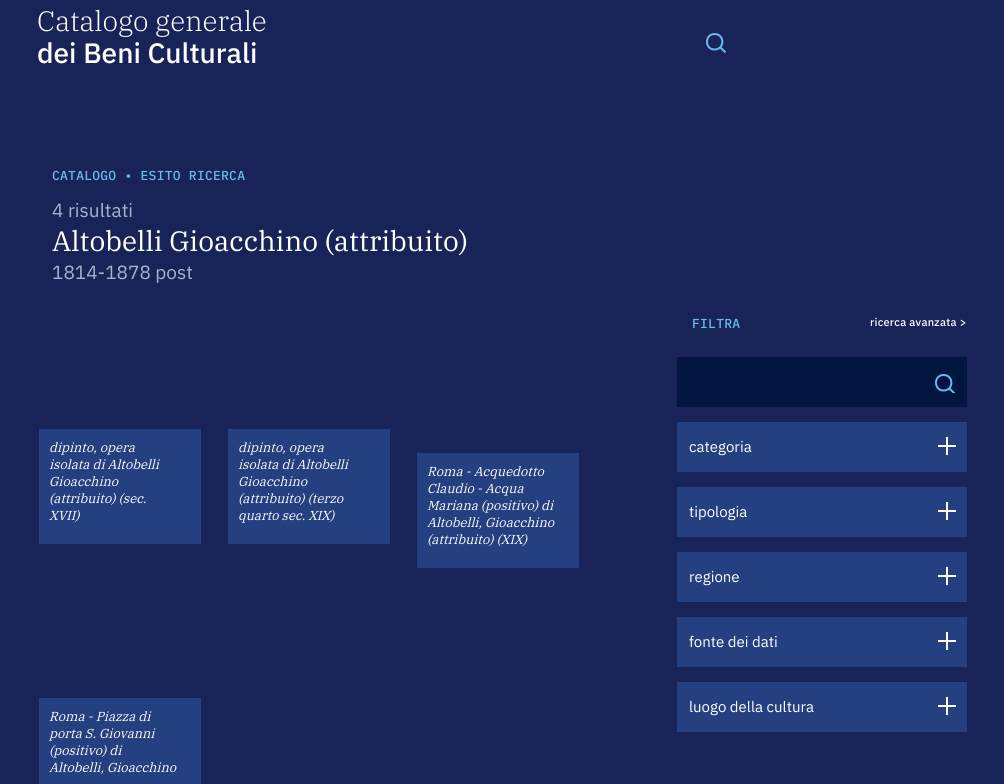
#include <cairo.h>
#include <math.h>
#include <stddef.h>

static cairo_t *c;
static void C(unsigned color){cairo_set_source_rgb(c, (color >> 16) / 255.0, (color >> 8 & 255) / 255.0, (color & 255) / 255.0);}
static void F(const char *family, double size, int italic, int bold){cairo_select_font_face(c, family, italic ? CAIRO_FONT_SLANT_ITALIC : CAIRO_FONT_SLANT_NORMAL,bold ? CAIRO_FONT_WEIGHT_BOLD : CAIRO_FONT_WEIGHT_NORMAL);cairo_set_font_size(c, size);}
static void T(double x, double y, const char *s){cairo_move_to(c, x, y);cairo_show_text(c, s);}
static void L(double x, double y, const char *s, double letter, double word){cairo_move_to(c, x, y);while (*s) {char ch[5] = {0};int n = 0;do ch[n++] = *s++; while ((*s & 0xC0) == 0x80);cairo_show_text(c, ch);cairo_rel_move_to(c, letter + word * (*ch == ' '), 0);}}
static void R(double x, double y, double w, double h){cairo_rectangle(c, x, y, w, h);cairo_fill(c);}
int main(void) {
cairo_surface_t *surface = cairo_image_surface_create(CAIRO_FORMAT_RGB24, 1004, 784);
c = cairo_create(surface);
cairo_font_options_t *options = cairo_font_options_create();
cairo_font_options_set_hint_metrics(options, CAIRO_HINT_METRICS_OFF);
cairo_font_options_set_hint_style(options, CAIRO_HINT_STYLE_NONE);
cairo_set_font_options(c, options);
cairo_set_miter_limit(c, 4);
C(0x182358);
cairo_paint(c);
F("IBM Plex Serif Light",28,0,0);
C(0xffffff);
T(37,31,"Catalogo generale");
F("IBM Plex Sans Medium",28,0,0);
T(37,63,"dei Beni Culturali");
cairo_new_path(c);
cairo_move_to(c,714.5,49.5);
cairo_curve_to(c,725,49.5,725,34,714.5,34);
cairo_curve_to(c,704.5,34,704.5,49.5,714.5,49.5);
cairo_close_path(c);
cairo_move_to(c,720.5,47.5);
cairo_line_to(c,725.5,52.5);
C(0x69b9ec);
cairo_stroke(c);
F("IBM Plex Mono Medium",13,0,0);
L(52,180,"CATALOGO • ESITO RICERCA",.25,0);
F("IBM Plex Sans",19,0,0);
C(0xa7b2cc);
T(52,217,"4 risultati");
F("IBM Plex Serif",28,0,0);
C(0xffffff);
T(52,251,"Altobelli Gioacchino (attribuito)");
F("IBM Plex Sans",19,0,0);
C(0xa7b2cc);
T(52,279,"1814-1878 post");
C(0x244080);
R(39,429,162,115);
F("IBM Plex Serif",13,1,0);
C(0xffffff);
T(49,452,"dipinto, opera");
T(49,469,"isolata di Altobelli");
T(49,486,"Gioacchino");
T(49,503,"(attribuito) (sec.");
T(49,520,"XVII)");
C(0x244080);
R(228,429,162,115);
C(0xffffff);
T(238,452,"dipinto, opera");
T(238,469,"isolata di Altobelli");
T(238,486,"Gioacchino");
T(238,503,"(attribuito) (terzo");
T(238,520,"quarto sec. XIX)");
C(0x244080);
R(417,453,162,115);
C(0xffffff);
T(427,476,"Roma - Acquedotto");
T(427,493,"Claudio - Acqua");
T(427,510,"Mariana (positivo) di");
T(427,527,"Altobelli, Gioacchino");
T(427,544,"(attribuito) (XIX)");
C(0x244080);
R(39,698,162,86);
C(0xffffff);
T(49,721,"Roma - Piazza di");
T(49,738,"porta S. Giovanni");
T(49,755,"(positivo) di");
T(49,772,"Altobelli, Gioacchino");
F("IBM Plex Mono Medium",13,0,0);
C(0x69b9ec);
L(692,328,"FILTRA",.25,0);
F("IBM Plex Sans Medium",11,0,0);
C(0xffffff);
L(870,326,"ricerca avanzata >",.25,0);
C(0x021440);
R(677,357,290,50);
cairo_new_path(c);
cairo_move_to(c,943.5,390.5);
cairo_curve_to(c,954,390.5,954,375,943.5,375);
cairo_curve_to(c,933.5,375,933.5,390.5,943.5,390.5);
cairo_close_path(c);
C(0x69b9ec);
cairo_stroke(c);
cairo_save(c);
cairo_rectangle(c,935,374,20,19);
cairo_clip(c);
cairo_new_path(c);
cairo_move_to(c,949.5,388.5);
cairo_line_to(c,954.5,393.5);
cairo_stroke(c);
cairo_restore(c);
C(0x244080);
R(677,422,290,50);
C(0xffffff);
R(938,445,18,2);
R(946,437,2,18);
F("IBM Plex Sans",15,0,0);
T(689,452,"categoria");
C(0x244080);
R(677,487,290,50);
C(0xffffff);
R(938,510,18,2);
R(946,502,2,18);
T(689,517,"tipologia");
C(0x244080);
R(677,552,290,50);
C(0xffffff);
R(938,575,18,2);
R(946,567,2,18);
T(689,582,"regione");
C(0x244080);
R(677,617,290,50);
C(0xffffff);
R(938,640,18,2);
R(946,632,2,18);
T(689,647,"fonte dei dati");
C(0x244080);
R(677,682,290,50);
C(0xffffff);
R(938,705,18,2);
R(946,697,2,18);
T(689,712,"luogo della cultura");
cairo_surface_write_to_png(surface, "o.png");
cairo_font_options_destroy(options);
cairo_destroy(c);
cairo_surface_destroy(surface);
return 0;
}
